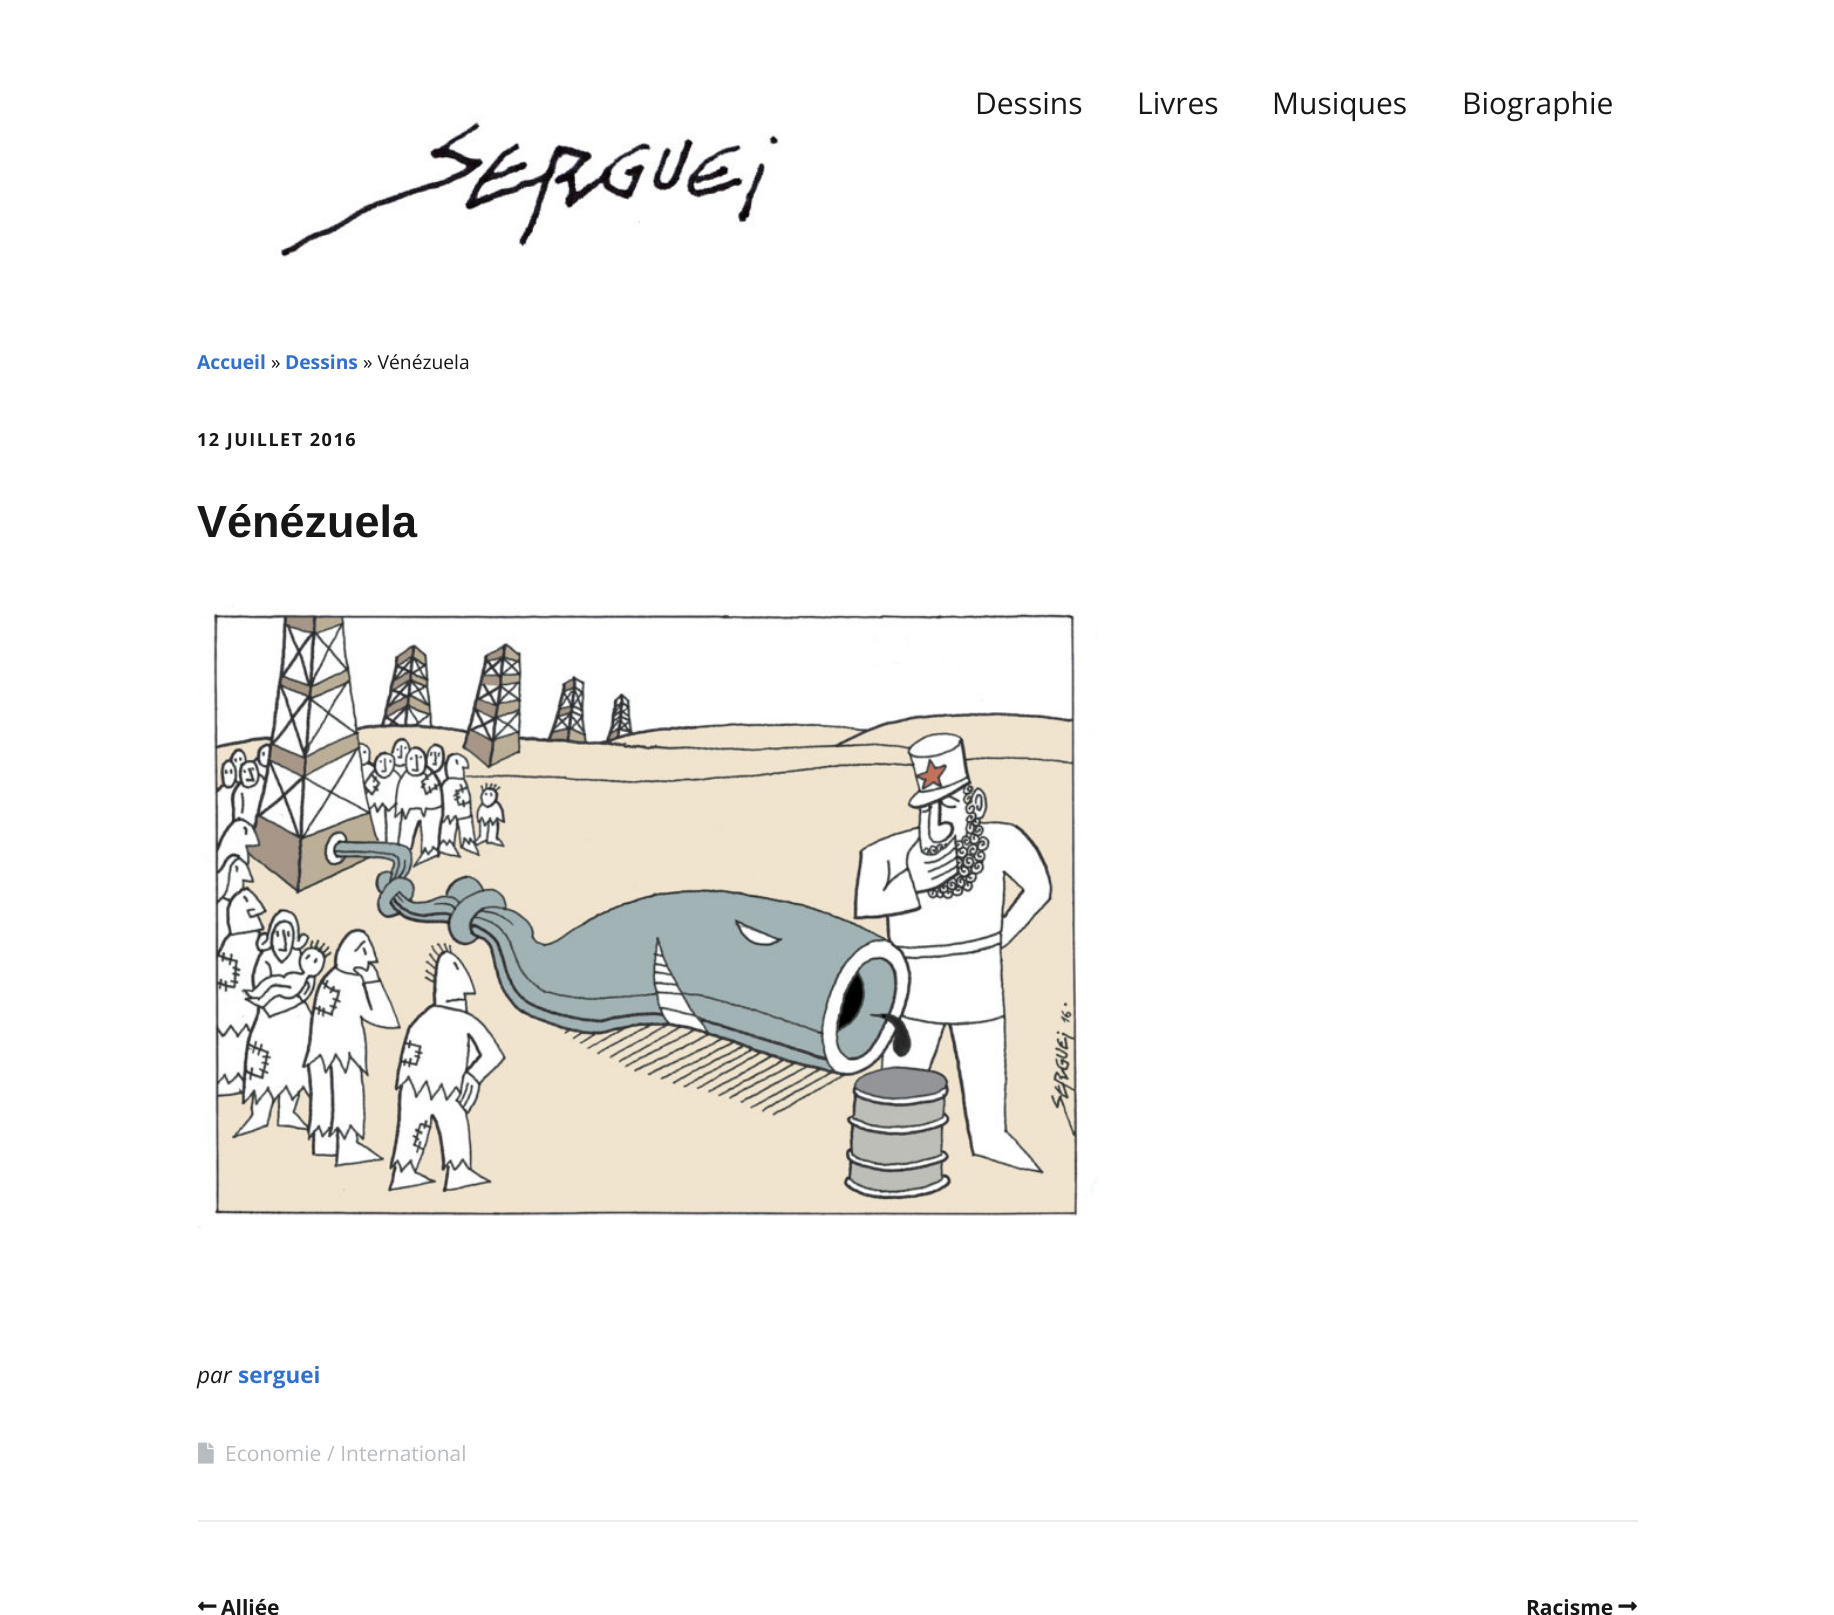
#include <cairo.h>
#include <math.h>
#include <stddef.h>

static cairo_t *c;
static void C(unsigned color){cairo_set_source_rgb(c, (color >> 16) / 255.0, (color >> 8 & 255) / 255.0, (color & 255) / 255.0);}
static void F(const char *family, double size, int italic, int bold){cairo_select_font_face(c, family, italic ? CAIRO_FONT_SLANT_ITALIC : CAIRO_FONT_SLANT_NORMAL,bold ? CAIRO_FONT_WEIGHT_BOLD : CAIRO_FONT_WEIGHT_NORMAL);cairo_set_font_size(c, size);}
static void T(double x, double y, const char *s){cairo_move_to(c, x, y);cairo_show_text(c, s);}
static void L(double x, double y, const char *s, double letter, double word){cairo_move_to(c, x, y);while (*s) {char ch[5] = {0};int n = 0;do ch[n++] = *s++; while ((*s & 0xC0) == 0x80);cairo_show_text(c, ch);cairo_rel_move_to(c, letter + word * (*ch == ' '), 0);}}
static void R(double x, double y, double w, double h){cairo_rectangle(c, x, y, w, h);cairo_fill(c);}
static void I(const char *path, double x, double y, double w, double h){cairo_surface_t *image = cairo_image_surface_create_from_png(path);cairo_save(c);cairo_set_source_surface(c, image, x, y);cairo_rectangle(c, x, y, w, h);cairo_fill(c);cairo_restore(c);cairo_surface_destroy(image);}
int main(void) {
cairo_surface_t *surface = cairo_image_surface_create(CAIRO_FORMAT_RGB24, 1834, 1615);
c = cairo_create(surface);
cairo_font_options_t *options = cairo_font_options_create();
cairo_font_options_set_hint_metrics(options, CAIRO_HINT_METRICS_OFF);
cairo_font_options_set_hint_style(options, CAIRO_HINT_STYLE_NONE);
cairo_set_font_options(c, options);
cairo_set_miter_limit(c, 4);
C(0xffffff);
cairo_paint(c);
F("Open Sans",30,0,0);
C(0x171717);
T(975,114,"Dessins");
T(1137,114,"Livres");
T(1272,114,"Musiques");
T(1462,114,"Biographie");
I("1.png",275,114,506,143);
C(0xeaecee);
R(198,1520,1440,2);
F("Open Sans",19.25,0,1);
C(0x3070d1);
T(197,369,"Accueil");
F("Open Sans",19.25,0,0);
C(0x171717);
T(271,369,"»");
F("Open Sans",19.25,0,1);
C(0x3070d1);
T(285,369,"Dessins");
F("Open Sans",19.25,0,0);
C(0x171717);
T(363,369,"» Vénézuela");
F("Open Sans",18,0,1);
L(197,446,"12 JUILLET 2016",1.5,0);
F("Liberation Sans",45,0,1);
T(197,537,"Vénézuela");
I("2.png",198,603,900,626);
F("Open Sans",22.5,1,0);
T(197,1383,"par");
F("Open Sans",22.5,0,1);
C(0x3070d1);
T(238,1383,"serguei");
I("3.png",198,1442,16,22);
F("Open Sans",21,0,0);
C(0xb9bcbf);
T(225,1461,"Economie");
T(327,1461,"/ International");
I("4.png",198,1601,19,10);
F("Open Sans",21,0,1);
C(0x171717);
T(221,1615,"Alliée");
T(1526,1615,"Racisme");
I("5.png",1618,1601,19,10);
cairo_surface_write_to_png(surface, "o.png");
cairo_font_options_destroy(options);
cairo_destroy(c);
cairo_surface_destroy(surface);
return 0;
}
